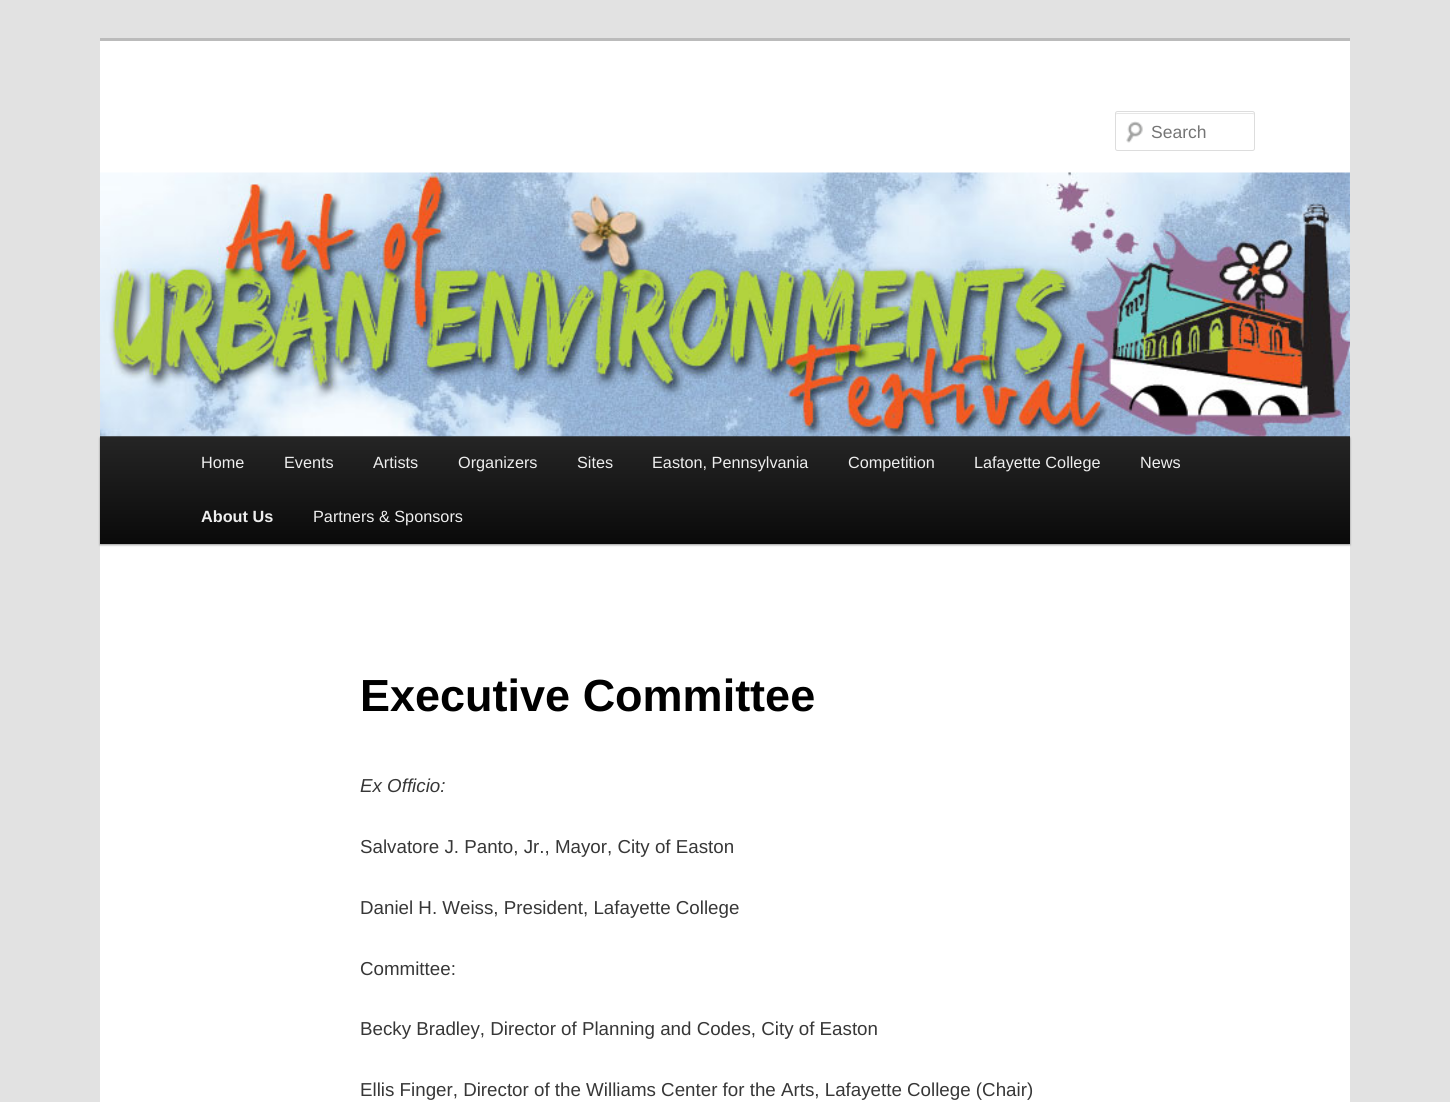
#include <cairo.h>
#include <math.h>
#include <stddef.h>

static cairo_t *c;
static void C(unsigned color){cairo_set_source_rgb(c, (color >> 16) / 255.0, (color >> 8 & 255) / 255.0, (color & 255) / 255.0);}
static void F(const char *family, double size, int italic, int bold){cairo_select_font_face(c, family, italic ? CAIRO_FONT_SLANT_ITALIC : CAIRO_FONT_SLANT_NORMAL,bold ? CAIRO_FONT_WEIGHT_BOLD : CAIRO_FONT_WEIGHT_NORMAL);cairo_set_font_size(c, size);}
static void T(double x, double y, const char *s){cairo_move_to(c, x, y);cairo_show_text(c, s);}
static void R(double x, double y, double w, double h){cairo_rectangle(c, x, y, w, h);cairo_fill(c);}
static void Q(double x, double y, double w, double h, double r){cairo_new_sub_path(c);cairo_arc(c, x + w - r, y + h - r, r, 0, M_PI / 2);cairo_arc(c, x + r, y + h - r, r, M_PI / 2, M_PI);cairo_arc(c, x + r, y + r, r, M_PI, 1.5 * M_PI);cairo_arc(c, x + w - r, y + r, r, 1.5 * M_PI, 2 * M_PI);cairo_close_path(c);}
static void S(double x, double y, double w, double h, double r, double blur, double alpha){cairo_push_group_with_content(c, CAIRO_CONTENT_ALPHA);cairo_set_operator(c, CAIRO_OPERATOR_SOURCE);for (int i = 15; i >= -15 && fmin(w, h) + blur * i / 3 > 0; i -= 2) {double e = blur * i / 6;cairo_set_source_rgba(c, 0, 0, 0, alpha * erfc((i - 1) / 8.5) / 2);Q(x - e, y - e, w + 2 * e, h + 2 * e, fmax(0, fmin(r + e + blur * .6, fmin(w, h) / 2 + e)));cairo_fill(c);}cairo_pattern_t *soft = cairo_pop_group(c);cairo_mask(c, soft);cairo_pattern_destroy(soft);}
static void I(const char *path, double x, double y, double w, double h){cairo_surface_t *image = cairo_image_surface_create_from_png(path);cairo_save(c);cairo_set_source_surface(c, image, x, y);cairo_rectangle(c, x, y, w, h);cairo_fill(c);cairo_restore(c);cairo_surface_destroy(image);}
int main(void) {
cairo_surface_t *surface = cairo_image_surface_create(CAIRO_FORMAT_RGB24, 1450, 1102);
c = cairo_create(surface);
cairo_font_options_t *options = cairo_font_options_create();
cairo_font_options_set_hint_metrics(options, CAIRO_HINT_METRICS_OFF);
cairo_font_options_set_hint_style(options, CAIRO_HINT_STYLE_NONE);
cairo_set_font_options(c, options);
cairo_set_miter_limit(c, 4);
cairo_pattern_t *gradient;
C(0xe2e2e2);
cairo_paint(c);
C(0xffffff);
R(100,41,1250,1061);
C(0xbbbbbb);
R(100,38,1250,3);
I("1.png",1126,121,17,22);
C(0xe6e6e6);
cairo_new_path(c);
cairo_move_to(c,1118,114);
cairo_line_to(c,1252,114);
cairo_curve_to(c,1253,114,1254,114,1254,115);
cairo_curve_to(c,1254,114,1254,113,1253,113);
cairo_line_to(c,1117,113);
cairo_curve_to(c,1116,113,1116,114,1116,115);
cairo_curve_to(c,1116,114,1117,114,1118,114);
cairo_close_path(c);
cairo_fill(c);
Q(1115.5,111.5,139,39,2);
C(0xdddddd);
cairo_set_line_width(c,1);
cairo_stroke(c);
F("Liberation Sans",17.5,0,0);
C(0x757575);
T(1151,138,"Search");
C(0x000000);
S(100,438,1250,107,0,1,.4);
gradient = cairo_pattern_create_linear(725,436,725,544);
cairo_pattern_add_color_stop_rgba(gradient,0,0.145,0.145,0.145,1);
cairo_pattern_add_color_stop_rgba(gradient,1,0.039,0.039,0.039,1);
cairo_set_source(c,gradient);
cairo_pattern_destroy(gradient);
R(100,436,1250,108);
I("2.png",100,172,1250,265);
F("Liberation Sans",16.25,0,0);
C(0xeeeeee);
T(201,468,"Home");
T(284,468,"Events");
T(373,468,"Artists");
T(458,468,"Organizers");
T(577,468,"Sites");
T(652,468,"Easton, Pennsylvania");
T(848,468,"Competition");
T(974,468,"Lafayette College");
T(1140,468,"News");
F("Liberation Sans",16.25,0,1);
T(201,522,"About Us");
F("Liberation Sans",16.25,0,0);
T(313,522,"Partners & Sponsors");
F("Liberation Sans",45,0,1);
C(0x000000);
T(360,711,"Executive Committee");
F("Liberation Sans",18.75,1,0);
C(0x373737);
T(360,792,"Ex Officio:");
F("Liberation Sans",18.75,0,0);
T(360,853,"Salvatore J. Panto, Jr., Mayor, City of Easton");
T(360,914,"Daniel H. Weiss, President, Lafayette College");
T(360,975,"Committee:");
T(360,1035,"Becky Bradley, Director of Planning and Codes, City of Easton");
T(360,1096,"Ellis Finger, Director of the Williams Center for the Arts, Lafayette College (Chair)");
cairo_surface_write_to_png(surface, "o.png");
cairo_font_options_destroy(options);
cairo_destroy(c);
cairo_surface_destroy(surface);
return 0;
}
